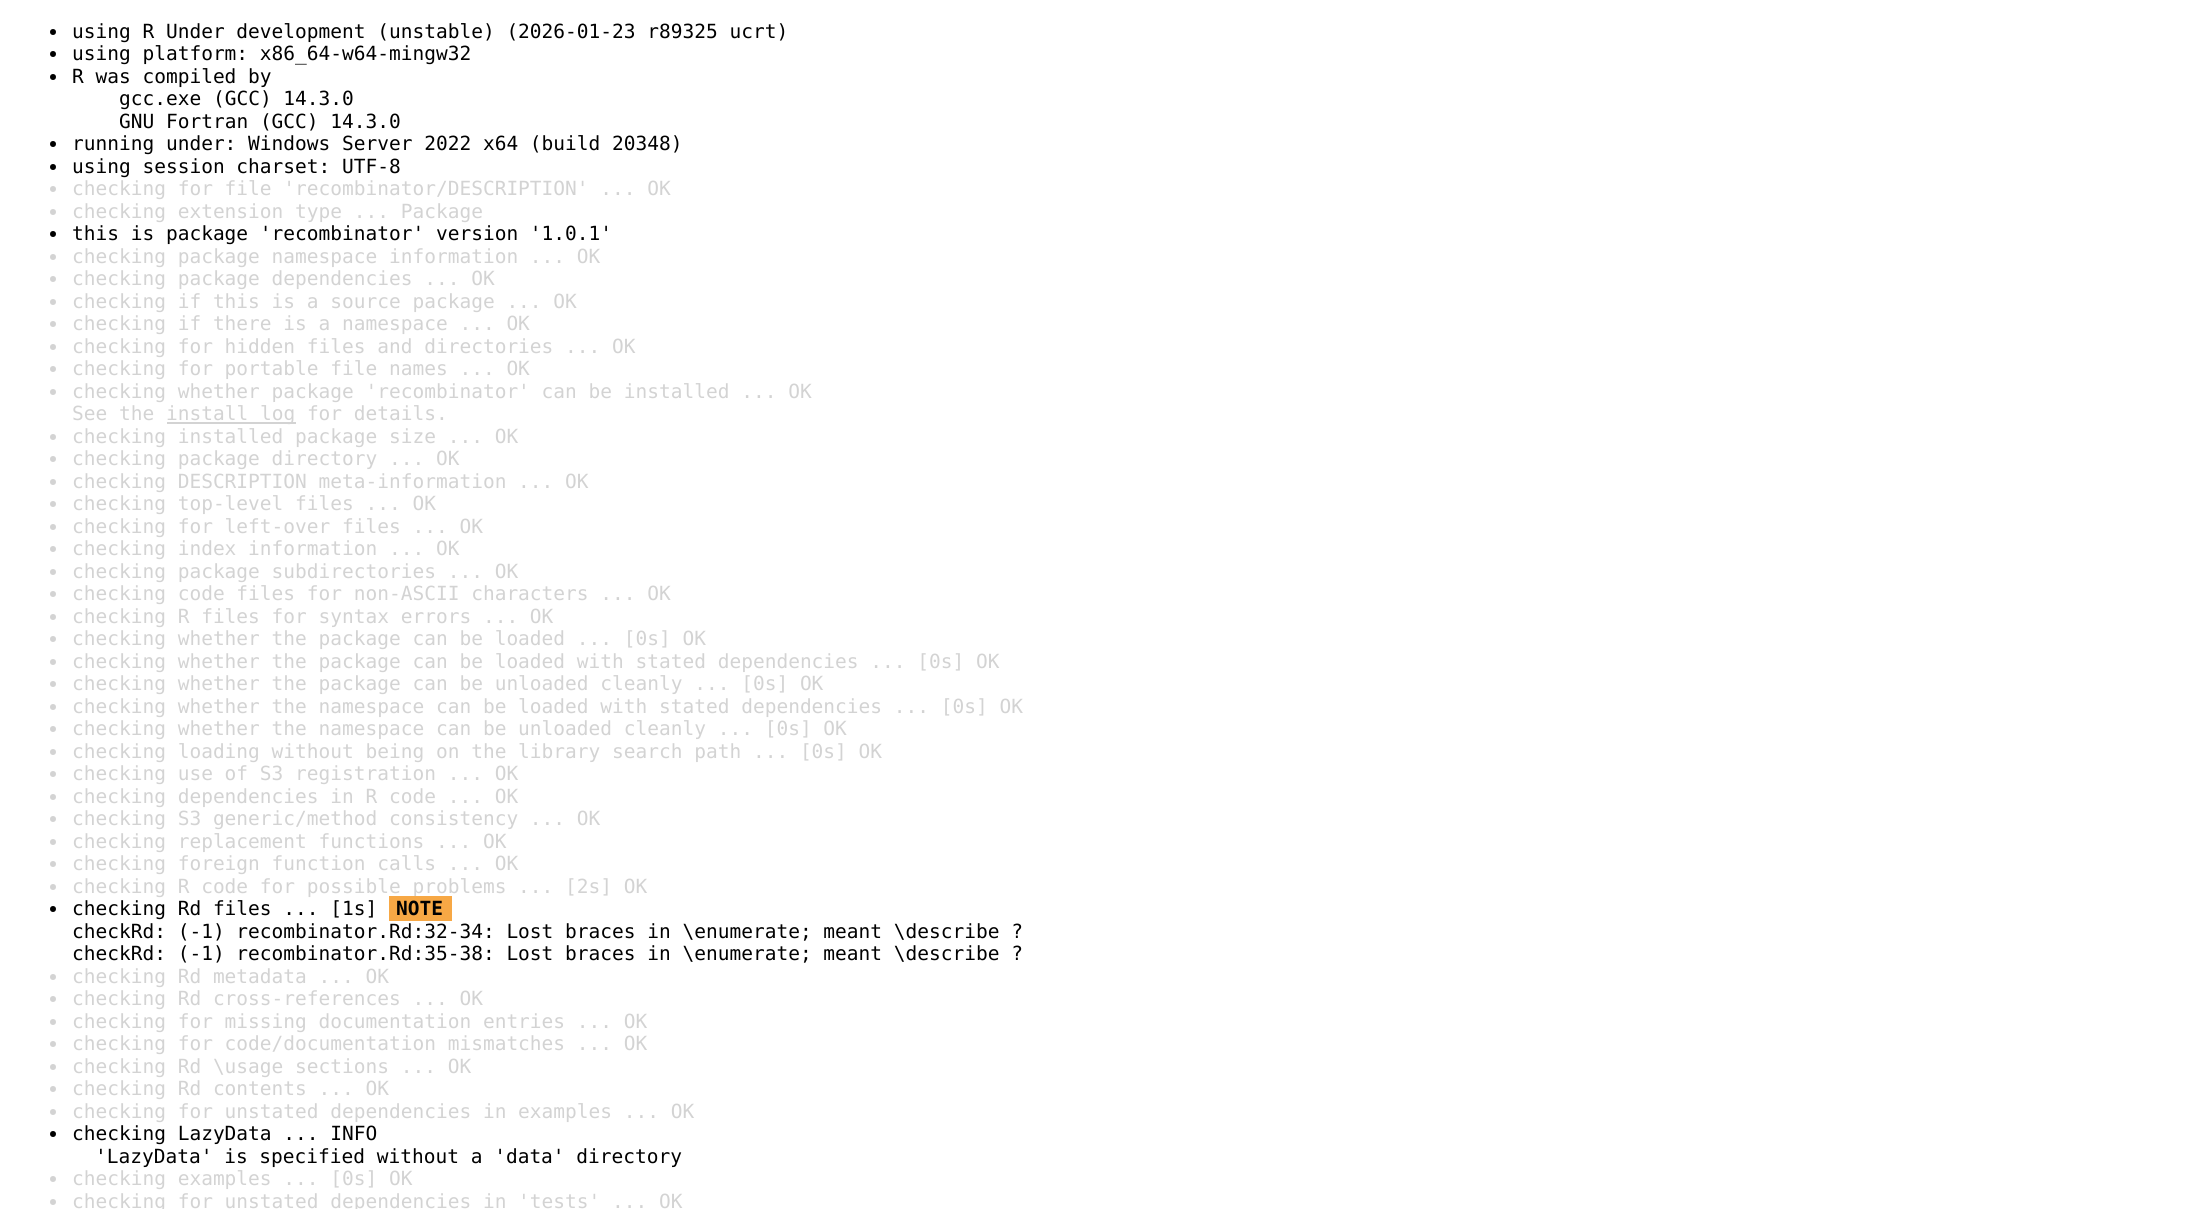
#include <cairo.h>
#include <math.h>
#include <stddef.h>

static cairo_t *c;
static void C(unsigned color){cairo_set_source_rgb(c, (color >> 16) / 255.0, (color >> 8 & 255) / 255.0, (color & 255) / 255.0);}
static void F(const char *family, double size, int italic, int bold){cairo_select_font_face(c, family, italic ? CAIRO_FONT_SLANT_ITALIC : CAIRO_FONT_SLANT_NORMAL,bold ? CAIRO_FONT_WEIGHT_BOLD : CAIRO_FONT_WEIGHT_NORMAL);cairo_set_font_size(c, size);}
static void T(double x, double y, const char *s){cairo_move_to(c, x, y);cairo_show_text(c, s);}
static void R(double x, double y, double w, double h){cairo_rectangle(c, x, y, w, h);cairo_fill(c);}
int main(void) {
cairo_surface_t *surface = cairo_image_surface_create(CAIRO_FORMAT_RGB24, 2211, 1209);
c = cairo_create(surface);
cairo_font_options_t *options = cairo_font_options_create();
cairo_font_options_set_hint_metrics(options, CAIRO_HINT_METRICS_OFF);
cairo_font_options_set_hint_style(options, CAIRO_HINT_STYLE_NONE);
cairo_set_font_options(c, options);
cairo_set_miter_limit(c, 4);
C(0xffffff);
cairo_paint(c);
C(0x000000);
cairo_arc(c,53,32,3,0,2 * M_PI);
cairo_fill(c);
F("DejaVu Sans Mono",19.5,0,0);
T(72,38,"using R Under development (unstable) (2026-01-23 r89325 ucrt)");
cairo_new_path(c);
cairo_arc(c,53,54,3,0,2 * M_PI);
cairo_fill(c);
T(72,60,"using platform: x86_64-w64-mingw32");
cairo_new_path(c);
cairo_arc(c,53,77,3,0,2 * M_PI);
cairo_fill(c);
T(72,83,"R was compiled by");
T(119,105,"gcc.exe (GCC) 14.3.0");
T(119,128,"GNU Fortran (GCC) 14.3.0");
cairo_new_path(c);
cairo_arc(c,53,144,3,0,2 * M_PI);
cairo_fill(c);
T(72,150,"running under: Windows Server 2022 x64 (build 20348)");
cairo_new_path(c);
cairo_arc(c,53,167,3,0,2 * M_PI);
cairo_fill(c);
T(72,173,"using session charset: UTF-8");
C(0xd3d3d3);
cairo_new_path(c);
cairo_arc(c,53,189,3,0,2 * M_PI);
cairo_fill(c);
T(72,195,"checking for file 'recombinator/DESCRIPTION' ... OK");
cairo_new_path(c);
cairo_arc(c,53,212,3,0,2 * M_PI);
cairo_fill(c);
T(72,218,"checking extension type ... Package");
C(0x000000);
cairo_new_path(c);
cairo_arc(c,53,234,3,0,2 * M_PI);
cairo_fill(c);
T(72,240,"this is package 'recombinator' version '1.0.1'");
C(0xd3d3d3);
cairo_new_path(c);
cairo_arc(c,53,257,3,0,2 * M_PI);
cairo_fill(c);
T(72,263,"checking package namespace information ... OK");
cairo_new_path(c);
cairo_arc(c,53,279,3,0,2 * M_PI);
cairo_fill(c);
T(72,285,"checking package dependencies ... OK");
cairo_new_path(c);
cairo_arc(c,53,302,3,0,2 * M_PI);
cairo_fill(c);
T(72,308,"checking if this is a source package ... OK");
cairo_new_path(c);
cairo_arc(c,53,324,3,0,2 * M_PI);
cairo_fill(c);
T(72,330,"checking if there is a namespace ... OK");
cairo_new_path(c);
cairo_arc(c,53,347,3,0,2 * M_PI);
cairo_fill(c);
T(72,353,"checking for hidden files and directories ... OK");
cairo_new_path(c);
cairo_arc(c,53,369,3,0,2 * M_PI);
cairo_fill(c);
T(72,375,"checking for portable file names ... OK");
cairo_new_path(c);
cairo_arc(c,53,392,3,0,2 * M_PI);
cairo_fill(c);
T(72,398,"checking whether package 'recombinator' can be installed ... OK");
T(72,420,"See the");
R(167,422,129,2);
T(166,420,"install log for details.");
C(0xffffff);
R(274,402,1,1);
C(0xd3d3d3);
cairo_new_path(c);
cairo_arc(c,53,437,3,0,2 * M_PI);
cairo_fill(c);
T(72,443,"checking installed package size ... OK");
cairo_new_path(c);
cairo_arc(c,53,459,3,0,2 * M_PI);
cairo_fill(c);
T(72,465,"checking package directory ... OK");
cairo_new_path(c);
cairo_arc(c,53,482,3,0,2 * M_PI);
cairo_fill(c);
T(72,488,"checking DESCRIPTION meta-information ... OK");
cairo_new_path(c);
cairo_arc(c,53,504,3,0,2 * M_PI);
cairo_fill(c);
T(72,510,"checking top-level files ... OK");
cairo_new_path(c);
cairo_arc(c,53,527,3,0,2 * M_PI);
cairo_fill(c);
T(72,533,"checking for left-over files ... OK");
cairo_new_path(c);
cairo_arc(c,53,549,3,0,2 * M_PI);
cairo_fill(c);
T(72,555,"checking index information ... OK");
cairo_new_path(c);
cairo_arc(c,53,572,3,0,2 * M_PI);
cairo_fill(c);
T(72,578,"checking package subdirectories ... OK");
cairo_new_path(c);
cairo_arc(c,53,594,3,0,2 * M_PI);
cairo_fill(c);
T(72,600,"checking code files for non-ASCII characters ... OK");
cairo_new_path(c);
cairo_arc(c,53,617,3,0,2 * M_PI);
cairo_fill(c);
T(72,623,"checking R files for syntax errors ... OK");
cairo_new_path(c);
cairo_arc(c,53,639,3,0,2 * M_PI);
cairo_fill(c);
T(72,645,"checking whether the package can be loaded ... [0s] OK");
cairo_new_path(c);
cairo_arc(c,53,662,3,0,2 * M_PI);
cairo_fill(c);
T(72,668,"checking whether the package can be loaded with stated dependencies ... [0s] OK");
cairo_new_path(c);
cairo_arc(c,53,684,3,0,2 * M_PI);
cairo_fill(c);
T(72,690,"checking whether the package can be unloaded cleanly ... [0s] OK");
cairo_new_path(c);
cairo_arc(c,53,707,3,0,2 * M_PI);
cairo_fill(c);
T(72,713,"checking whether the namespace can be loaded with stated dependencies ... [0s] OK");
cairo_new_path(c);
cairo_arc(c,53,729,3,0,2 * M_PI);
cairo_fill(c);
T(72,735,"checking whether the namespace can be unloaded cleanly ... [0s] OK");
cairo_new_path(c);
cairo_arc(c,53,752,3,0,2 * M_PI);
cairo_fill(c);
T(72,758,"checking loading without being on the library search path ... [0s] OK");
cairo_new_path(c);
cairo_arc(c,53,774,3,0,2 * M_PI);
cairo_fill(c);
T(72,780,"checking use of S3 registration ... OK");
cairo_new_path(c);
cairo_arc(c,53,797,3,0,2 * M_PI);
cairo_fill(c);
T(72,803,"checking dependencies in R code ... OK");
cairo_new_path(c);
cairo_arc(c,53,819,3,0,2 * M_PI);
cairo_fill(c);
T(72,825,"checking S3 generic/method consistency ... OK");
cairo_new_path(c);
cairo_arc(c,53,842,3,0,2 * M_PI);
cairo_fill(c);
T(72,848,"checking replacement functions ... OK");
cairo_new_path(c);
cairo_arc(c,53,864,3,0,2 * M_PI);
cairo_fill(c);
T(72,870,"checking foreign function calls ... OK");
cairo_new_path(c);
cairo_arc(c,53,887,3,0,2 * M_PI);
cairo_fill(c);
T(72,893,"checking R code for possible problems ... [2s] OK");
C(0x000000);
cairo_new_path(c);
cairo_arc(c,53,909,3,0,2 * M_PI);
cairo_fill(c);
T(72,915,"checking Rd files ... [1s]");
C(0xf7a845);
R(389,896,63,25);
F("DejaVu Sans Mono",19.5,0,1);
C(0x000000);
T(396,915,"NOTE");
F("DejaVu Sans Mono",19.5,0,0);
T(72,938,"checkRd: (-1) recombinator.Rd:32-34: Lost braces in \\enumerate; meant \\describe ?");
T(72,960,"checkRd: (-1) recombinator.Rd:35-38: Lost braces in \\enumerate; meant \\describe ?");
C(0xd3d3d3);
cairo_new_path(c);
cairo_arc(c,53,977,3,0,2 * M_PI);
cairo_fill(c);
T(72,983,"checking Rd metadata ... OK");
cairo_new_path(c);
cairo_arc(c,53,999,3,0,2 * M_PI);
cairo_fill(c);
T(72,1005,"checking Rd cross-references ... OK");
cairo_new_path(c);
cairo_arc(c,53,1022,3,0,2 * M_PI);
cairo_fill(c);
T(72,1028,"checking for missing documentation entries ... OK");
cairo_new_path(c);
cairo_arc(c,53,1044,3,0,2 * M_PI);
cairo_fill(c);
T(72,1050,"checking for code/documentation mismatches ... OK");
cairo_new_path(c);
cairo_arc(c,53,1067,3,0,2 * M_PI);
cairo_fill(c);
T(72,1073,"checking Rd \\usage sections ... OK");
cairo_new_path(c);
cairo_arc(c,53,1089,3,0,2 * M_PI);
cairo_fill(c);
T(72,1095,"checking Rd contents ... OK");
cairo_new_path(c);
cairo_arc(c,53,1112,3,0,2 * M_PI);
cairo_fill(c);
T(72,1118,"checking for unstated dependencies in examples ... OK");
C(0x000000);
cairo_new_path(c);
cairo_arc(c,53,1134,3,0,2 * M_PI);
cairo_fill(c);
T(72,1140,"checking LazyData ... INFO");
T(95,1163,"'LazyData' is specified without a 'data' directory");
C(0xd3d3d3);
cairo_new_path(c);
cairo_arc(c,53,1179,3,0,2 * M_PI);
cairo_fill(c);
T(72,1185,"checking examples ... [0s] OK");
cairo_new_path(c);
cairo_arc(c,53,1202,3,0,2 * M_PI);
cairo_fill(c);
T(72,1208,"checking for unstated dependencies in 'tests' ... OK");
cairo_surface_write_to_png(surface, "o.png");
cairo_font_options_destroy(options);
cairo_destroy(c);
cairo_surface_destroy(surface);
return 0;
}
